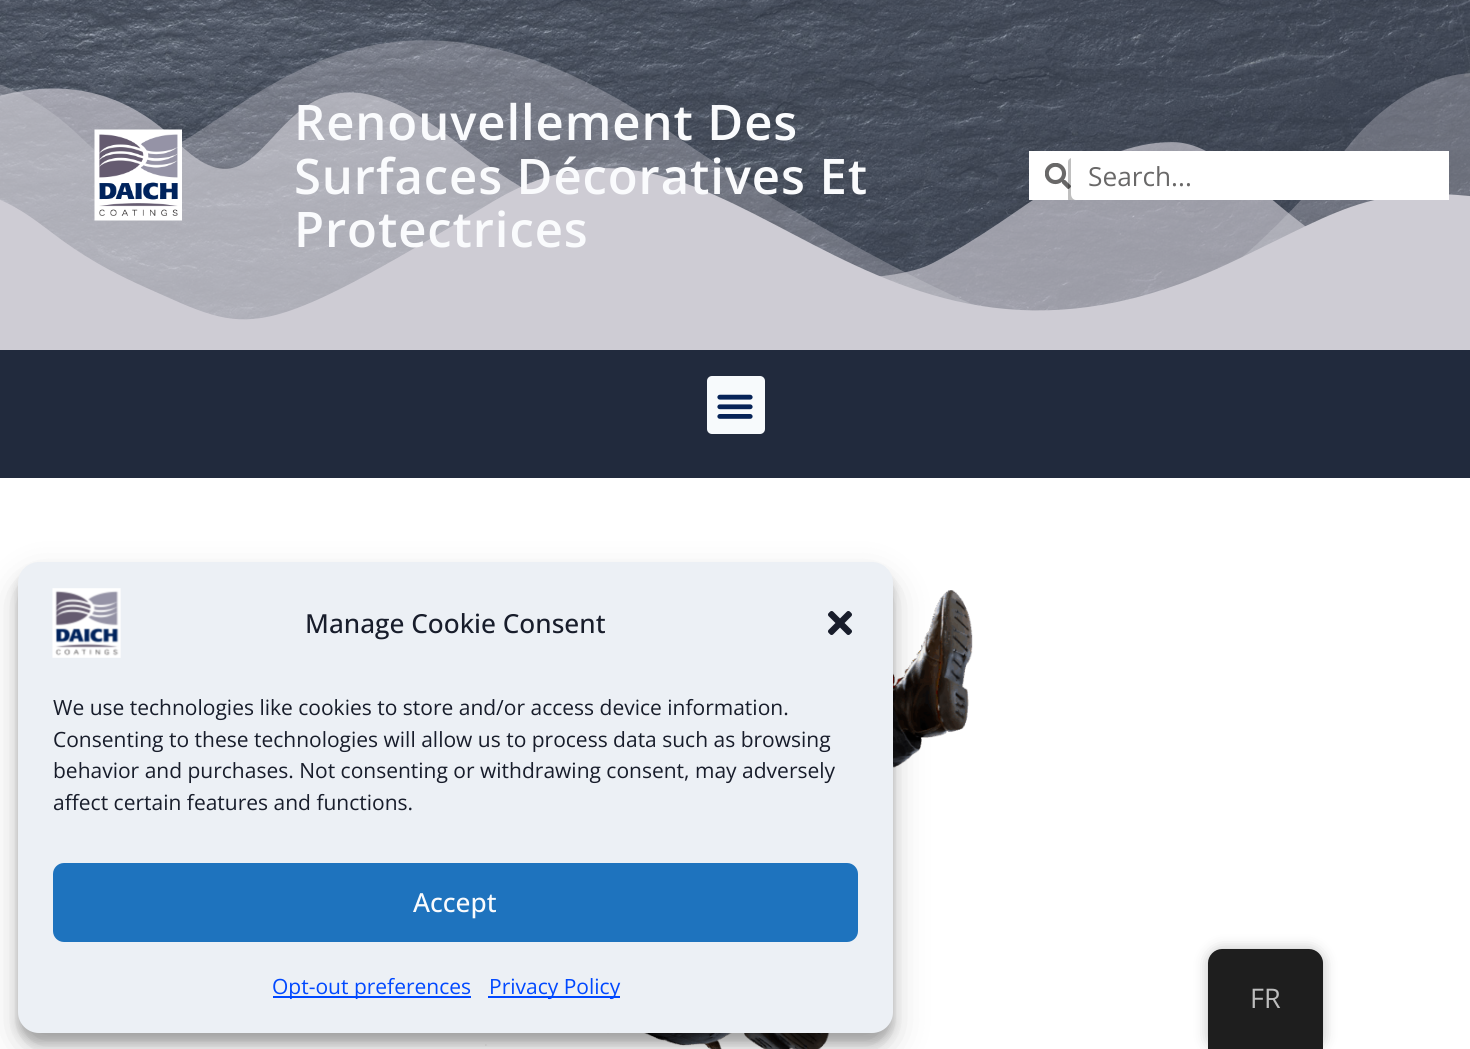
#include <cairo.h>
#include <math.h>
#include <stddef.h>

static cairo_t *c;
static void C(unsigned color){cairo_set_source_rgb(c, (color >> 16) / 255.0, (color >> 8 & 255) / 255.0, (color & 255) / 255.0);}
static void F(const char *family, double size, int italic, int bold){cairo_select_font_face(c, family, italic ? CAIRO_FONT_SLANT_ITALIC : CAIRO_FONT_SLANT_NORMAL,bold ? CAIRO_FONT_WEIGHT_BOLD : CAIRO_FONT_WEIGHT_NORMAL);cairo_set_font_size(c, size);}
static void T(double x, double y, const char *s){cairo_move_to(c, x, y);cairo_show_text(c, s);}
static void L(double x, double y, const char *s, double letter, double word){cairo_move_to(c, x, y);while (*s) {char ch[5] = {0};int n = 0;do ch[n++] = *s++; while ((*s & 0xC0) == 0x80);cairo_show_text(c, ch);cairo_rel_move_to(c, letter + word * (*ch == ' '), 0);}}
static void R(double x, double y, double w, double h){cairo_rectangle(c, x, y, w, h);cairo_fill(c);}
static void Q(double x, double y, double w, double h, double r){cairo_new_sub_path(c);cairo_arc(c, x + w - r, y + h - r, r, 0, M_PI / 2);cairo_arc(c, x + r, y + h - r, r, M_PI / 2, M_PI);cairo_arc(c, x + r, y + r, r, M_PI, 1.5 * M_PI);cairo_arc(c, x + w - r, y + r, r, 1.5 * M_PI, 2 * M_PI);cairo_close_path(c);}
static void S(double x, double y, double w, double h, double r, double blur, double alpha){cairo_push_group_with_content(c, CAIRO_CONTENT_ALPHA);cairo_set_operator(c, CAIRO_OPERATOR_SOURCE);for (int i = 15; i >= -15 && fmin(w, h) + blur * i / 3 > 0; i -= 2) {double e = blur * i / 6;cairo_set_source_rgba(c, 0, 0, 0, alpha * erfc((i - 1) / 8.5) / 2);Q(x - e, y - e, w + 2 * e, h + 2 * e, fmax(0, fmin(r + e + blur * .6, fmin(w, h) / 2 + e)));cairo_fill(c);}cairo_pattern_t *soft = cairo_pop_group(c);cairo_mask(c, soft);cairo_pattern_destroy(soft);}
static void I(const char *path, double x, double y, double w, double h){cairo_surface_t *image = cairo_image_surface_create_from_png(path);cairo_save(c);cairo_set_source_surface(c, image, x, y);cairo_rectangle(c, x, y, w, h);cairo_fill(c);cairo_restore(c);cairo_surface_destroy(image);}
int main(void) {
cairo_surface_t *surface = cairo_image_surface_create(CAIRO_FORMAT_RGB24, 1470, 1049);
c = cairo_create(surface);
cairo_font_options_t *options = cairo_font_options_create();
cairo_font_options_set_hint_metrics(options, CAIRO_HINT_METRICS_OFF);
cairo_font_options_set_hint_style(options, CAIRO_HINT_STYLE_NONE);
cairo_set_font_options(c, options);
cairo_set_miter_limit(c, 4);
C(0xffffff);
cairo_paint(c);
C(0x6b7996);
R(0,0,1470,320);
I("1.png",0,0,1470,320);
I("2.png",0,40,1470,310);
I("3.png",94,129,88,92);
F("Open Sans SemiBold",49,0,0);
C(0xfafbfd);
L(294,140,"Renouvellement Des",.9,0);
L(294,194,"Surfaces Décoratives Et",.9,0);
L(294,247,"Protectrices",.9,0);
C(0xffffff);
R(1029,151,420,49);
cairo_save(c);
cairo_rectangle(c,1029,151,420,49);
cairo_clip(c);
C(0xbfbfbf);
cairo_new_path(c);
cairo_move_to(c,1071,158);
cairo_curve_to(c,1069,159,1068,160,1068,162);
cairo_line_to(c,1068,199);
cairo_curve_to(c,1068,201,1070,203,1072,203);
cairo_line_to(c,1438,203);
cairo_curve_to(c,1440,203,1442,201,1442,200);
cairo_line_to(c,1076,200);
cairo_curve_to(c,1073,200,1071,197,1071,194);
cairo_close_path(c);
cairo_fill(c);
cairo_restore(c);
I("4.png",1045,163,26,26);
F("Open Sans",26.25,0,0);
C(0x696868);
T(1088,186,"Search...");
C(0x212a3d);
R(0,350,1470,128);
C(0xf7fafc);
Q(707,376,58,58,5);
cairo_fill(c);
I("5.png",717,394,36,25);
I("6.png",485,590,488,459);
C(0x000000);
S(18,572,875,471,21,5,.23);
S(18,579,875,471,21,17.5,.19);
C(0xecf0f5);
Q(18,562,875,471,21);
cairo_fill(c);
I("7.png",52,588,69,70);
F("Open Sans Medium",26.25,0,0);
C(0x181d2b);
T(305,633,"Manage Cookie Consent");
I("8.png",828,611,24,24);
F("Open Sans",21,0,0);
T(53,715,"We use technologies like cookies to store and/or access device information.");
T(53,747,"Consenting to these technologies will allow us to process data such as browsing");
T(53,778,"behavior and purchases. Not consenting or withdrawing consent, may adversely");
T(53,810,"affect certain features and functions.");
C(0x1e73be);
Q(54,864,803,77,10);
cairo_fill_preserve(c);
cairo_stroke(c);
F("Open Sans Medium",26.25,0,0);
C(0xfafbfd);
T(413,912,"Accept");
C(0x0048ff);
R(273,996,198,2);
F("Open Sans",21,0,0);
T(272,994,"Opt-out preferences");
R(488,996,132,2);
T(489,994,"Privacy Policy");
C(0x000000);
S(1208,949,115,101,14,7,.25);
C(0x1e1e1e);
cairo_new_path(c);
cairo_move_to(c,1222,949);
cairo_line_to(c,1309,949);
cairo_curve_to(c,1316.5,949,1323,955.5,1323,963);
cairo_line_to(c,1323,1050);
cairo_line_to(c,1208,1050);
cairo_line_to(c,1208,963);
cairo_curve_to(c,1208,955.5,1214.5,949,1222,949);
cairo_close_path(c);
cairo_fill(c);
F("Open Sans",27,0,0);
C(0xbdbdbd);
T(1250,1008,"FR");
cairo_surface_write_to_png(surface, "o.png");
cairo_font_options_destroy(options);
cairo_destroy(c);
cairo_surface_destroy(surface);
return 0;
}
